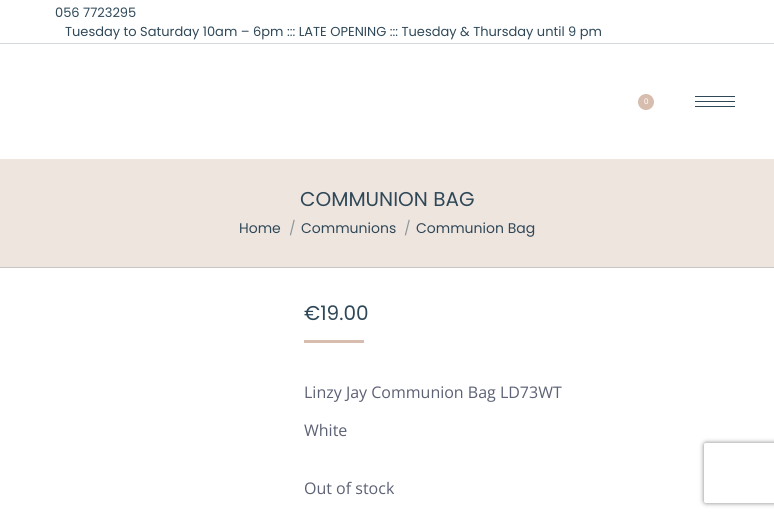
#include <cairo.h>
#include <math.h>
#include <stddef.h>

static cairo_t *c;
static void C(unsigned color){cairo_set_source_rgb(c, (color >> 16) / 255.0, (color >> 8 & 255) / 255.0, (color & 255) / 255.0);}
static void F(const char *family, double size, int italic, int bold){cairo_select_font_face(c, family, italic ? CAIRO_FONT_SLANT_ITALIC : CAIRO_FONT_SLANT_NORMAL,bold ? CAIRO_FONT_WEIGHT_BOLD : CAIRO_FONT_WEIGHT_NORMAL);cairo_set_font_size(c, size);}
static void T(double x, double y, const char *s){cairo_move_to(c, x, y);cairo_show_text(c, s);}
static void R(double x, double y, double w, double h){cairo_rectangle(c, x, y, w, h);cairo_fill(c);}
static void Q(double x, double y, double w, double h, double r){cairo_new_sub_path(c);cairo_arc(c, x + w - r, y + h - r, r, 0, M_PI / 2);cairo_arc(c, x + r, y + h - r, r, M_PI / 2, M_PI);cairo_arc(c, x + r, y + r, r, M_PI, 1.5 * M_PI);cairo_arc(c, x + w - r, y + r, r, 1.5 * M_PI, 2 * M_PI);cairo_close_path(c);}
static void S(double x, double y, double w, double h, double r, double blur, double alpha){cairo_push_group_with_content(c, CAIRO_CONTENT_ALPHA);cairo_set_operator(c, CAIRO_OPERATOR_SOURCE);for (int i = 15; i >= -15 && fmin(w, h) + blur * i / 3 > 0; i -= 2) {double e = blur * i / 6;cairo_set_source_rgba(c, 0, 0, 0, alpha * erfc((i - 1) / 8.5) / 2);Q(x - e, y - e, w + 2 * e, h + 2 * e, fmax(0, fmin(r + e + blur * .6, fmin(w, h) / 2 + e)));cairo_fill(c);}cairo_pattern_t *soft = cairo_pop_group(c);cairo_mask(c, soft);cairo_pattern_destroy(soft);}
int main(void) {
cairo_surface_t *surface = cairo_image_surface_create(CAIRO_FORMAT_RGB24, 774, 517);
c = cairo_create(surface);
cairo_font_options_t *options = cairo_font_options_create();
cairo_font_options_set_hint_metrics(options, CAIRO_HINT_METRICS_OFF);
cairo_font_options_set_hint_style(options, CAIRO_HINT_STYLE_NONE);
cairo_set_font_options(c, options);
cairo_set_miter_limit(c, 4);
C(0xffffff);
cairo_paint(c);
F("Poppins",13,0,0);
C(0x2f4858);
T(55,17,"056 7723295");
T(65,36,"Tuesday to Saturday 10am – 6pm ::: LATE OPENING ::: Tuesday & Thursday until 9 pm");
C(0xd5dade);
R(0,43,774,1);
C(0xd7bdae);
cairo_new_path(c);
cairo_arc(c,646,102,8,0,2 * M_PI);
cairo_fill(c);
F("Liberation Sans",8,0,0);
C(0xffffff);
T(644,104,"0");
C(0x2f4858);
R(695,96,40,1);
R(695,101,40,1);
R(695,106,40,1);
C(0xefe5df);
R(0,159,774,108);
C(0xc9c6c4);
R(0,267,774,1);
F("Poppins",20,0,0);
C(0x2f4858);
T(300,206,"COMMUNION BAG");
F("Poppins",14,0,0);
T(239,233,"Home");
C(0x8f979c);
T(289,233,"/");
C(0x2f4858);
T(301,233,"Communions");
C(0x8f979c);
T(404,233,"/");
C(0x2f4858);
T(416,233,"Communion Bag");
F("Poppins",20,0,0);
T(304,320,"€19.00");
C(0xd7bdae);
R(304,340,60,3);
F("Open Sans",16,0,0);
C(0x5c6174);
T(304,398,"Linzy Jay Communion Bag LD73WT");
T(304,436,"White");
T(304,494,"Out of stock");
cairo_save(c);
cairo_set_fill_rule(c,CAIRO_FILL_RULE_EVEN_ODD);
cairo_new_path(c);
cairo_move_to(c,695,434);
cairo_line_to(c,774,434);
cairo_line_to(c,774,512);
cairo_line_to(c,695,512);
cairo_close_path(c);
cairo_move_to(c,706,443);
cairo_line_to(c,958,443);
cairo_curve_to(c,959,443,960,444,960,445);
cairo_line_to(c,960,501);
cairo_curve_to(c,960,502,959,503,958,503);
cairo_line_to(c,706,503);
cairo_curve_to(c,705,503,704,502,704,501);
cairo_line_to(c,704,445);
cairo_curve_to(c,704,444,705,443,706,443);
cairo_close_path(c);
cairo_clip(c);
C(0x808080);
S(704,443,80,60,2,2.5,1);
cairo_restore(c);
cairo_surface_write_to_png(surface, "o.png");
cairo_font_options_destroy(options);
cairo_destroy(c);
cairo_surface_destroy(surface);
return 0;
}
